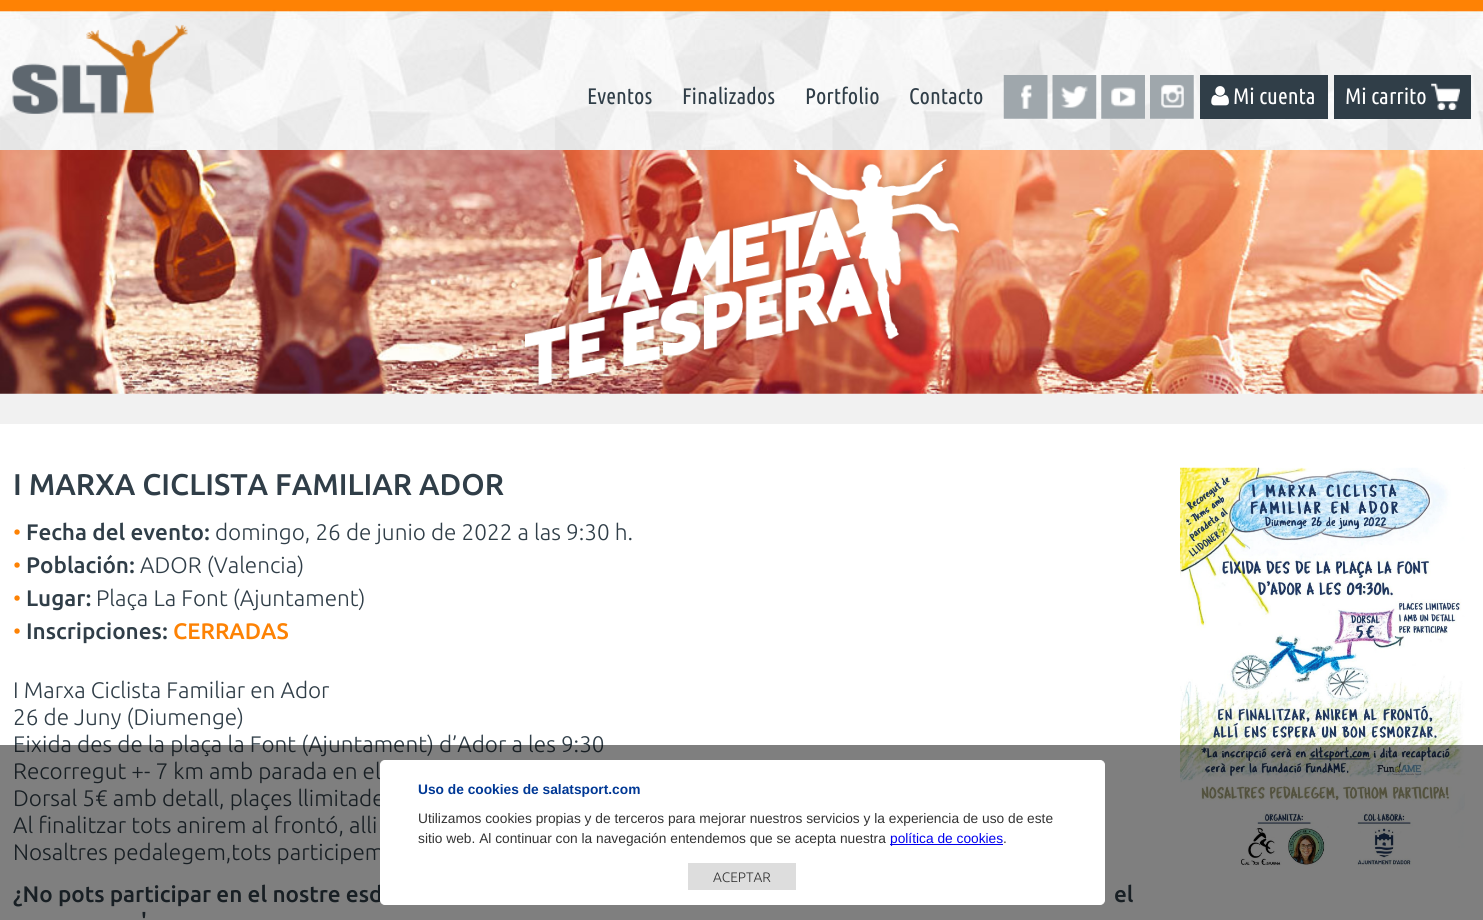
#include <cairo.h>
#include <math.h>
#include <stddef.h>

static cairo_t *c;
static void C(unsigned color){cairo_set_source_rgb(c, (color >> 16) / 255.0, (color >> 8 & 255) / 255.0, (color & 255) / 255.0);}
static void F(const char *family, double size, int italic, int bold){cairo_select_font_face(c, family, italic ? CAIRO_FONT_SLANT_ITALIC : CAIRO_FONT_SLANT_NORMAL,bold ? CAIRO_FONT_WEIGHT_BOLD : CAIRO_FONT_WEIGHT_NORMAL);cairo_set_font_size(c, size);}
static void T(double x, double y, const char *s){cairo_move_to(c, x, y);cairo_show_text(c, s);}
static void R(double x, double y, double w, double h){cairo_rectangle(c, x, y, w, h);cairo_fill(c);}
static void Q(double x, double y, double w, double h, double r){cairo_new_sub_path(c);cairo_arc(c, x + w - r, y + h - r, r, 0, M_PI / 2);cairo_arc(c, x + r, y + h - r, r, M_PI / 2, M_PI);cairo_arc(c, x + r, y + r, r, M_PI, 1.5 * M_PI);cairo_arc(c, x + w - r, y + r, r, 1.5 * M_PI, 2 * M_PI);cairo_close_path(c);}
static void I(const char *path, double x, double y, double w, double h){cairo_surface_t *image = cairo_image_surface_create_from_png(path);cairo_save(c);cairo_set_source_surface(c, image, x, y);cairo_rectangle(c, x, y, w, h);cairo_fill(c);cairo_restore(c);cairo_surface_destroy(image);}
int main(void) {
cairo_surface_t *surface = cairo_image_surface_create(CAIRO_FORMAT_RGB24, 1483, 920);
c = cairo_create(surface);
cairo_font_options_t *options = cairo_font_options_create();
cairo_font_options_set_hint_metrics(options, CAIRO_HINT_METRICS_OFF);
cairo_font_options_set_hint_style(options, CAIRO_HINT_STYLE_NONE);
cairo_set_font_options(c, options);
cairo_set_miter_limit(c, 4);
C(0xf1f1f1);
cairo_paint(c);
I("1.png",0,0,1483,150);
I("2.png",12,24,176,90);
F("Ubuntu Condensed",22.5,0,0);
C(0x303e48);
T(587,104,"Eventos");
T(682,104,"Finalizados");
T(805,104,"Portfolio");
T(909,104,"Contacto");
I("3.png",1003,75,45,44);
I("4.png",1052,75,45,44);
I("5.png",1101,75,44,44);
I("6.png",1150,75,44,44);
R(1200,75,128,44);
I("7.png",1211,86,18,20);
C(0xffffff);
T(1233,104,"Mi cuenta");
C(0x303e48);
R(1334,75,137,44);
I("8.png",1431,83,29,27);
C(0xffffff);
T(1345,104,"Mi carrito");
I("9.png",0,150,1483,244);
I("10.png",519,158,442,231);
R(0,424,1483,496);
F("Ubuntu Medium",30,0,0);
C(0x303e48);
T(13,495,"I MARXA CICLISTA FAMILIAR ADOR");
F("Ubuntu Light",22.5,0,0);
C(0xfd8204);
T(13,540,"•");
F("Ubuntu Medium",22.5,0,0);
C(0x303e48);
T(26,540,"Fecha del evento:");
F("Ubuntu Light",22.5,0,0);
T(215,540,"domingo, 26 de junio de 2022 a las 9:30 h.");
C(0xfd8204);
T(13,573,"•");
F("Ubuntu Medium",22.5,0,0);
C(0x303e48);
T(26,573,"Población:");
F("Ubuntu Light",22.5,0,0);
T(140,573,"ADOR (Valencia)");
C(0xfd8204);
T(13,606,"•");
F("Ubuntu Medium",22.5,0,0);
C(0x303e48);
T(26,606,"Lugar:");
F("Ubuntu Light",22.5,0,0);
T(96,606,"Plaça La Font (Ajuntament)");
C(0xfd8204);
T(13,639,"•");
F("Ubuntu Medium",22.5,0,0);
C(0x303e48);
T(26,639,"Inscripciones:");
C(0xfd8204);
T(173,639,"CERRADAS");
F("Ubuntu Light",22.5,0,0);
C(0x303e48);
T(13,698,"I Marxa Ciclista Familiar en Ador");
T(13,725,"26 de Juny (Diumenge)");
T(13,752,"Eixida des de la plaça la Font (Ajuntament) d’Ador a les 9:30");
T(13,779,"Recorregut +- 7 km amb parada en el");
T(13,806,"Dorsal 5€ amb detall, plaçes llimitade");
T(13,833,"Al finalitzar tots anirem al frontó, alli");
T(13,860,"Nosaltres pedalegem,tots participem");
F("Ubuntu Medium",22.5,0,0);
T(13,902,"¿No pots participar en el nostre esd");
T(1114,902,"el");
T(141,929,"'");
I("11.png",1180,467,285,401);
cairo_set_source_rgba(c,0,0,0,0.5);
R(0,745,1483,175);
C(0xffffff);
Q(380.5,760.5,724,144,4.5);
cairo_fill_preserve(c);
cairo_set_line_width(c,1);
cairo_stroke(c);
F("Liberation Sans",13.75,0,1);
C(0x003895);
T(418,794,"Uso de cookies de salatsport.com");
F("Liberation Sans",13.75,0,0);
C(0x333333);
T(418,823,"Utilizamos cookies propias y de terceros para mejorar nuestros servicios y la experiencia de uso de este");
T(418,843,"sitio web. Al continuar con la navegación entendemos que se acepta nuestra");
C(0x0000ee);
R(890,844,113,1);
T(890,843,"política de cookies");
C(0x333333);
T(1003,843,".");
C(0xdddddd);
R(688,863,108,27);
F("Ubuntu Light",13.75,0,0);
C(0x333333);
T(713,882,"ACEPTAR");
cairo_surface_write_to_png(surface, "o.png");
cairo_font_options_destroy(options);
cairo_destroy(c);
cairo_surface_destroy(surface);
return 0;
}
